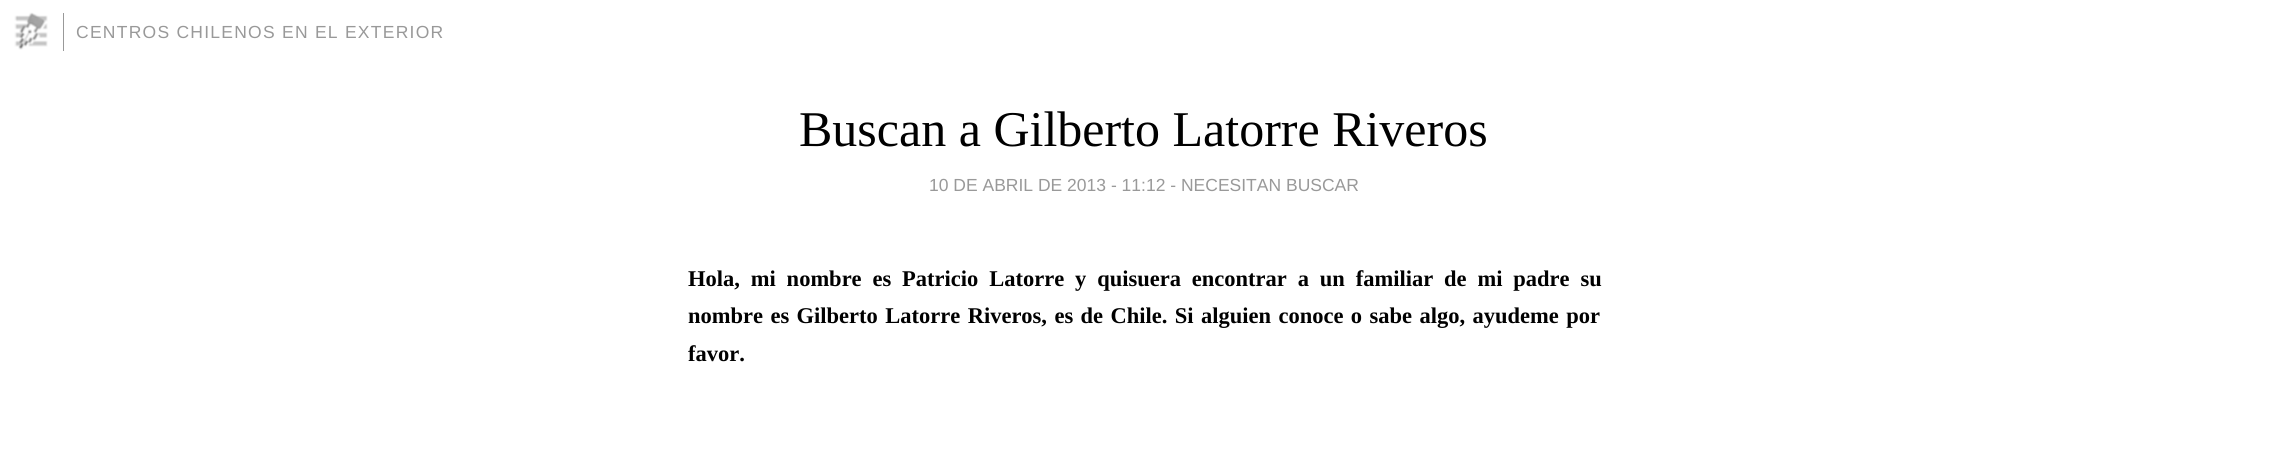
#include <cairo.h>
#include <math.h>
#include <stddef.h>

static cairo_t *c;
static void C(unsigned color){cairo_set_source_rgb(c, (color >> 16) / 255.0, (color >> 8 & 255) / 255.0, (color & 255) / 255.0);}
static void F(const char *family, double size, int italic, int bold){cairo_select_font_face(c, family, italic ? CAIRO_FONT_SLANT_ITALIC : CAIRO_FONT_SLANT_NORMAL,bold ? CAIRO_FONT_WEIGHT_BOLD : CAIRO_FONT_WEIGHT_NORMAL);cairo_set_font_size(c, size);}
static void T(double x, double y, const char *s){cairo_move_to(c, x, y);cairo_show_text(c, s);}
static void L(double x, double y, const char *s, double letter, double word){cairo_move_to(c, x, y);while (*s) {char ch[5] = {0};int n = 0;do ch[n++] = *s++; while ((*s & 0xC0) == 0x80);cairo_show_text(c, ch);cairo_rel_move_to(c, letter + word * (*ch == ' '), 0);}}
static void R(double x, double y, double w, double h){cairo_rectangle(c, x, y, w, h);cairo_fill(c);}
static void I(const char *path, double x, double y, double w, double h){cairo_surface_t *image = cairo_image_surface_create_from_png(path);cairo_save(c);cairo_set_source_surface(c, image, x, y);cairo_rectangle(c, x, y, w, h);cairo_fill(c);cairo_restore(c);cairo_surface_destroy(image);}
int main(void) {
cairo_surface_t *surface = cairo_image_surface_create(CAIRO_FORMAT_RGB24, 2287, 455);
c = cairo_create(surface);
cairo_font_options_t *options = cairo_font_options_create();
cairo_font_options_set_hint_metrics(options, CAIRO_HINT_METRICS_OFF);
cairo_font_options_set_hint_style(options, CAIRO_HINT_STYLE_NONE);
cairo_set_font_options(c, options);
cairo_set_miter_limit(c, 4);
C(0xffffff);
cairo_paint(c);
I("1.png",14,12,34,38);
C(0x999999);
R(63,13,1,38);
F("Liberation Sans",17.5,0,0);
L(76,38,"CENTROS CHILENOS EN EL EXTERIOR",1.25,0);
F("Liberation Serif",50,0,0);
C(0x000000);
T(799,146,"Buscan a Gilberto Latorre Riveros");
F("Liberation Sans",17.5,0,0);
C(0x999999);
T(929,191,"10 DE ABRIL DE 2013 - 11:12 - NECESITAN BUSCAR");
F("Liberation Serif",22.5,0,1);
C(0x000000);
L(688,286,"Hola, mi nombre es Patricio Latorre y quisuera encontrar a un familiar de mi padre su",0,5.25);
L(688,323,"nombre es Gilberto Latorre Riveros, es de Chile. Si alguien conoce o sabe algo, ayudeme por",0,1.8);
T(688,361,"favor.");
cairo_surface_write_to_png(surface, "o.png");
cairo_font_options_destroy(options);
cairo_destroy(c);
cairo_surface_destroy(surface);
return 0;
}
